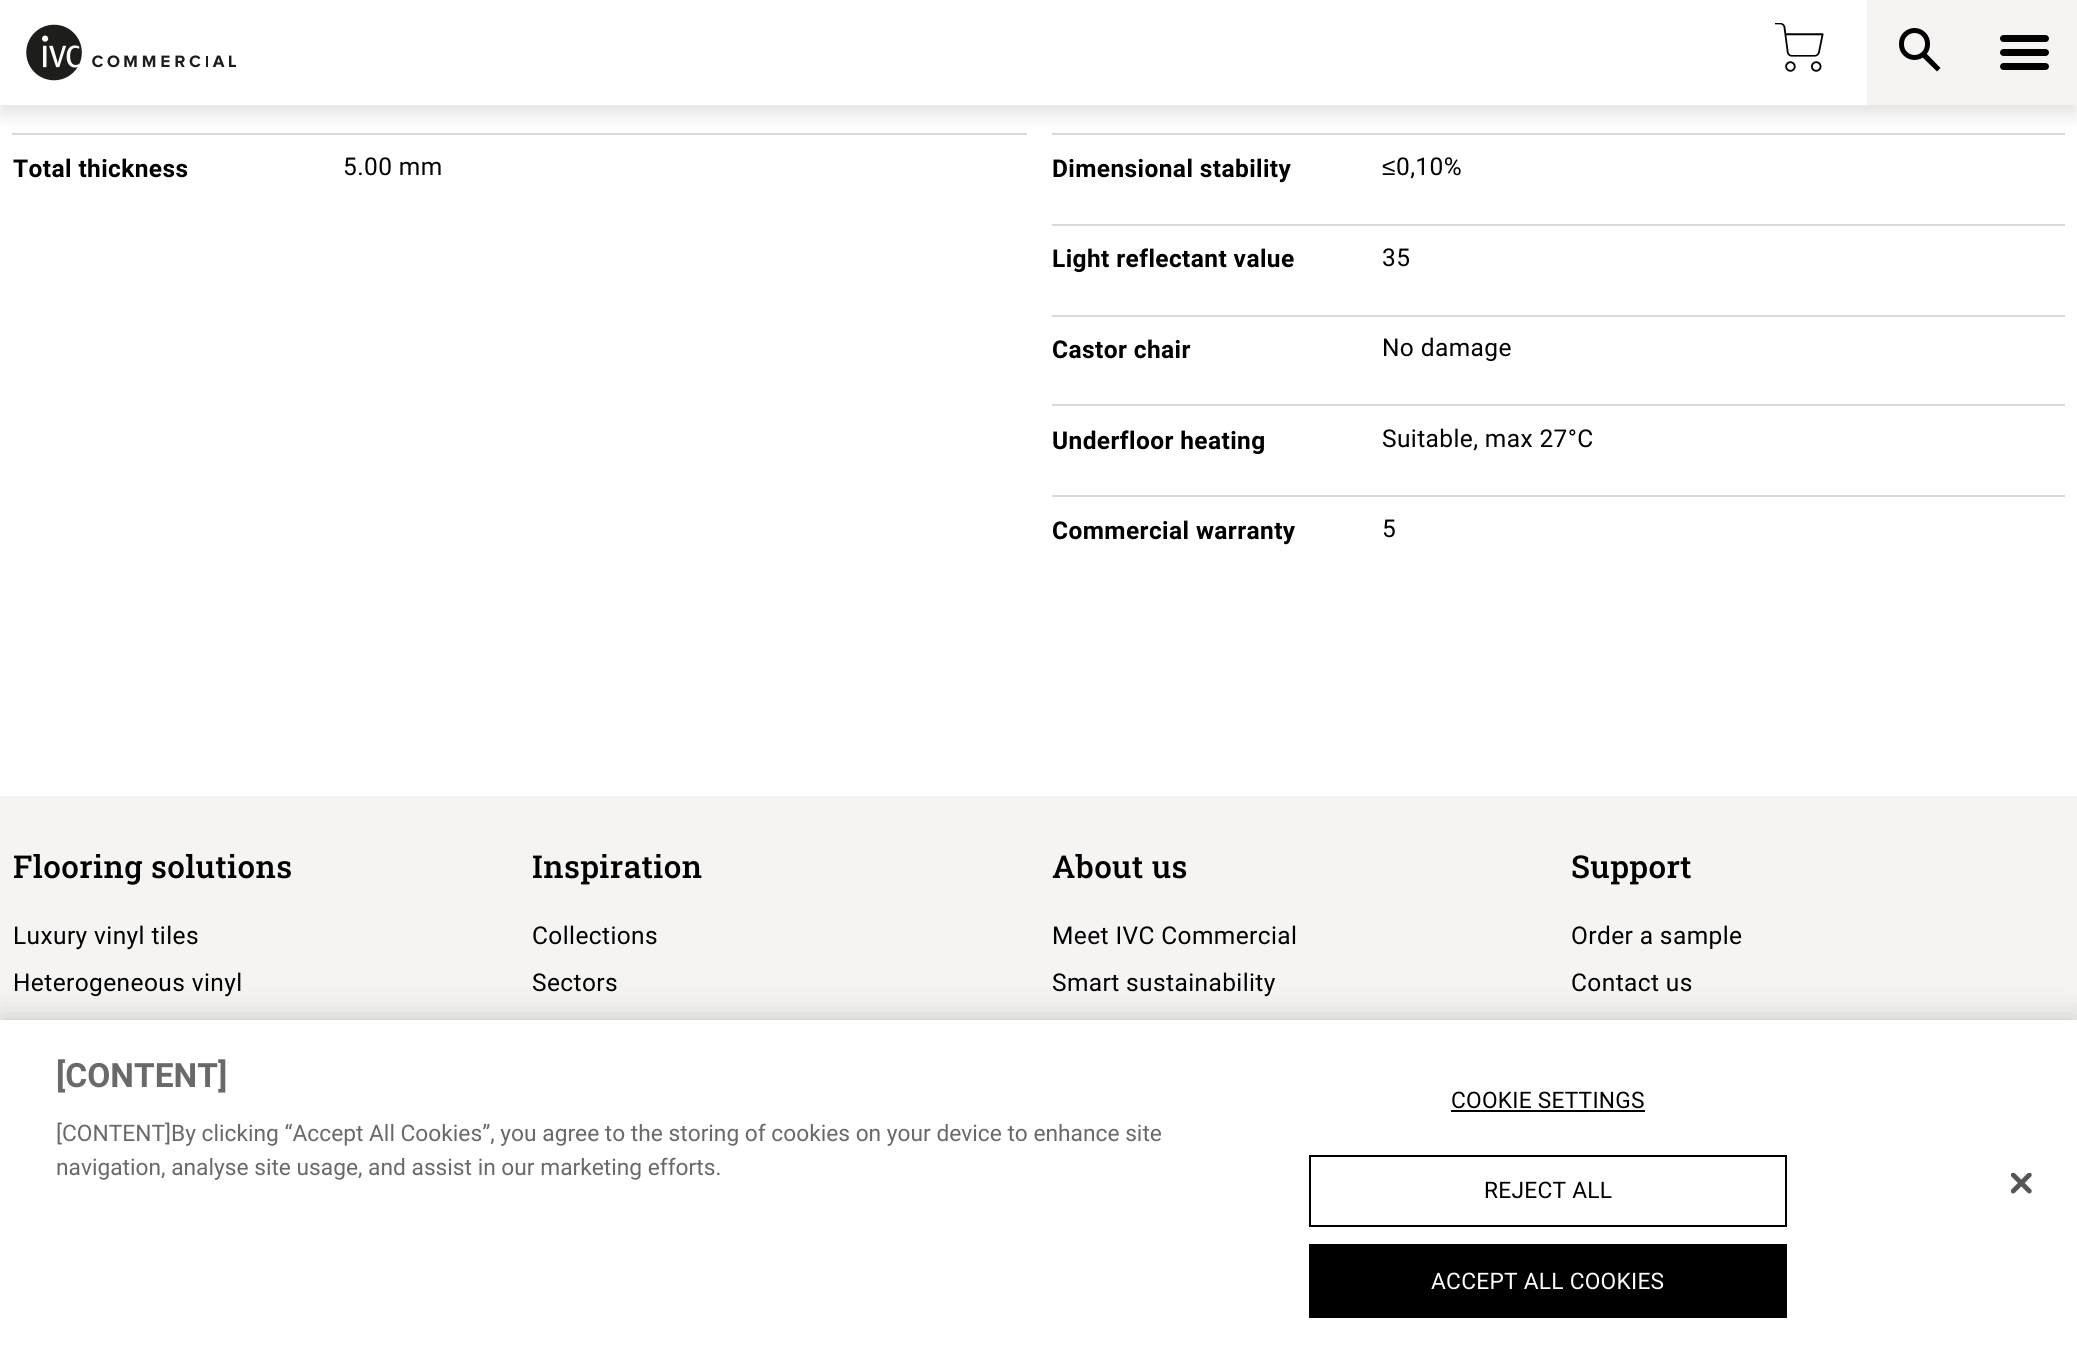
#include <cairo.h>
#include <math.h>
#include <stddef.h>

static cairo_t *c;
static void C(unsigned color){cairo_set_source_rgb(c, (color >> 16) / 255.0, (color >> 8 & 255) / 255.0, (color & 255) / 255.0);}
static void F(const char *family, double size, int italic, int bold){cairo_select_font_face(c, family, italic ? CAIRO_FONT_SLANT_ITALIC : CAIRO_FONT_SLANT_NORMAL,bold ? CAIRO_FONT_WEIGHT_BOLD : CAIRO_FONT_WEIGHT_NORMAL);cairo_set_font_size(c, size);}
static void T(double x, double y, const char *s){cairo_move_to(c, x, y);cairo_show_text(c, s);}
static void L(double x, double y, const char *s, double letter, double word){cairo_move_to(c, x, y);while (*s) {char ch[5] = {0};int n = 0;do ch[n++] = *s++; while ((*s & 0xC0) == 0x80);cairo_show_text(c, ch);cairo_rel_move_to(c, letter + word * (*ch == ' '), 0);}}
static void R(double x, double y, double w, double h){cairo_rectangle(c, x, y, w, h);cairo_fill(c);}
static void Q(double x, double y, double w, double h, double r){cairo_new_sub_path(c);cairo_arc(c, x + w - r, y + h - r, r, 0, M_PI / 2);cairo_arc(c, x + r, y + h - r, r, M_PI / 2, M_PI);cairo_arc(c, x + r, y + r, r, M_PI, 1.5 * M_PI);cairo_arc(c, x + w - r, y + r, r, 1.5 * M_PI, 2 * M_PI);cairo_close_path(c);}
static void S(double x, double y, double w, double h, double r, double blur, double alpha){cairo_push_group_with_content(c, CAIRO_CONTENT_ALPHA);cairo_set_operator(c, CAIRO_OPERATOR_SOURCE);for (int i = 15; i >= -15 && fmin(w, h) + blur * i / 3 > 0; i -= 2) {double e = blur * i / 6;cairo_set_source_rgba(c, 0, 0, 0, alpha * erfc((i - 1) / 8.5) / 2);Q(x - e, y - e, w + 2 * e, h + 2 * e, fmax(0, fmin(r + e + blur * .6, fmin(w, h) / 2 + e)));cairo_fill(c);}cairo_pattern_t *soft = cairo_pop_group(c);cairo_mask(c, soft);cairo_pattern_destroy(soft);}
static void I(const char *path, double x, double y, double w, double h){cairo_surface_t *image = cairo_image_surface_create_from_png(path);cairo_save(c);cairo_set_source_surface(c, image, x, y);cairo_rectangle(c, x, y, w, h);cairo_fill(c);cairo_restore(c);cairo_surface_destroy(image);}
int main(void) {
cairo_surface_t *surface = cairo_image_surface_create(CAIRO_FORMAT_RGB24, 2077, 1352);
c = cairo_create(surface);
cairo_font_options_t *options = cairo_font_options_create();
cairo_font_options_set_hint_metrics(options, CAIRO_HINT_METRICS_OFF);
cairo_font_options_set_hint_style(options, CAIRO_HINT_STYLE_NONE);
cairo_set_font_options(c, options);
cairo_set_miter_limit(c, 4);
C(0xffffff);
cairo_paint(c);
C(0xd8d9db);
R(12,133,1015,2);
R(1052,133,1013,2);
C(0x736d6d);
S(0,9,2077,105,0,9,.2);
C(0xffffff);
R(0,0,1867,105);
I("1.png",26,24,210,57);
I("2.png",1775,23,49,49);
C(0xf5f4f3);
R(1867,0,210,105);
C(0x000000);
cairo_new_path(c);
cairo_move_to(c,1922,49);
cairo_line_to(c,1940.5,68);
cairo_line_to(c,1937,71.5);
cairo_line_to(c,1918,53);
cairo_close_path(c);
cairo_fill(c);
C(0xf5f4f3);
Q(1901.5,30.5,26,27,13);
cairo_fill_preserve(c);
C(0x000000);
cairo_set_line_width(c,5);
cairo_stroke(c);
Q(2000,35,49,7,3.5);
cairo_fill(c);
Q(2000,49,49,7,3.5);
cairo_fill(c);
Q(2000,63,49,7,3.5);
cairo_fill(c);
F("Roboto",24.5,0,1);
L(13,177,"Total thickness",.4,0);
F("Roboto",24.5,0,0);
L(343,175,"5.00 mm",.4,0);
C(0xd8d9db);
R(1052,224,1013,2);
F("Roboto",24.5,0,1);
C(0x000000);
L(1052,177,"Dimensional stability",.4,0);
F("Liberation Sans",24.5,0,0);
L(1382,175,"≤",.4,0);
F("Roboto",24.5,0,0);
L(1396,175,"0,10%",.4,0);
C(0xd8d9db);
R(1052,315,1013,2);
F("Roboto",24.5,0,1);
C(0x000000);
L(1052,267,"Light reflectant value",.4,0);
F("Roboto",24.5,0,0);
L(1382,266,"35",.4,0);
C(0xd8d9db);
R(1052,404,1013,2);
F("Roboto",24.5,0,1);
C(0x000000);
L(1052,358,"Castor chair",.4,0);
F("Roboto",24.5,0,0);
L(1382,356,"No damage",.4,0);
C(0xd8d9db);
R(1052,495,1013,2);
F("Roboto",24.5,0,1);
C(0x000000);
L(1052,449,"Underfloor heating",.4,0);
F("Roboto",24.5,0,0);
L(1382,447,"Suitable, max 27°C",.4,0);
F("Roboto",24.5,0,1);
L(1052,539,"Commercial warranty",.4,0);
F("Roboto",24.5,0,0);
L(1382,537,"5",.4,0);
C(0xf5f4f3);
R(0,796,2077,224);
F("Roboto Slab Medium",31.5,0,0);
C(0x000000);
L(13,878,"Flooring solutions",.4,0);
F("Roboto",24.5,0,0);
L(13,944,"Luxury vinyl tiles",.4,0);
L(13,991,"Heterogeneous vinyl",.4,0);
F("Roboto Slab Medium",31.5,0,0);
L(532,878,"Inspiration",.4,0);
F("Roboto",24.5,0,0);
L(532,944,"Collections",.4,0);
L(532,991,"Sectors",.4,0);
F("Roboto Slab Medium",31.5,0,0);
L(1052,878,"About us",.4,0);
F("Roboto",24.5,0,0);
L(1052,944,"Meet IVC Commercial",.4,0);
L(1052,991,"Smart sustainability",.4,0);
F("Roboto Slab Medium",31.5,0,0);
L(1571,878,"Support",.4,0);
F("Roboto",24.5,0,0);
L(1571,944,"Order a sample",.4,0);
L(1571,991,"Contact us",.4,0);
C(0x000000);
S(0,1020,2077,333,0,16,.2);
C(0xffffff);
R(0,1020,2077,332);
F("Roboto",33.5,0,1);
C(0x696969);
T(56,1087,"[CONTENT]");
F("Roboto",22.75,0,0);
T(56,1141,"[CONTENT]By clicking “Accept All Cookies”, you agree to the storing of cookies on your device to enhance site");
T(56,1175,"navigation, analyse site usage, and assist in our marketing efforts.");
C(0x000000);
L(1451,1108,"COOKIE SETTINGS",.25,0);
R(1451,1110,194,2);
cairo_rectangle(c,1310,1156,476,70);
cairo_set_line_width(c,2);
cairo_stroke(c);
L(1484,1198,"REJECT ALL",.25,0);
R(1309,1244,478,74);
C(0xffffff);
L(1431,1289,"ACCEPT ALL COOKIES",.25,0);
I("3.png",2011,1173,21,21);
cairo_surface_write_to_png(surface, "o.png");
cairo_font_options_destroy(options);
cairo_destroy(c);
cairo_surface_destroy(surface);
return 0;
}
